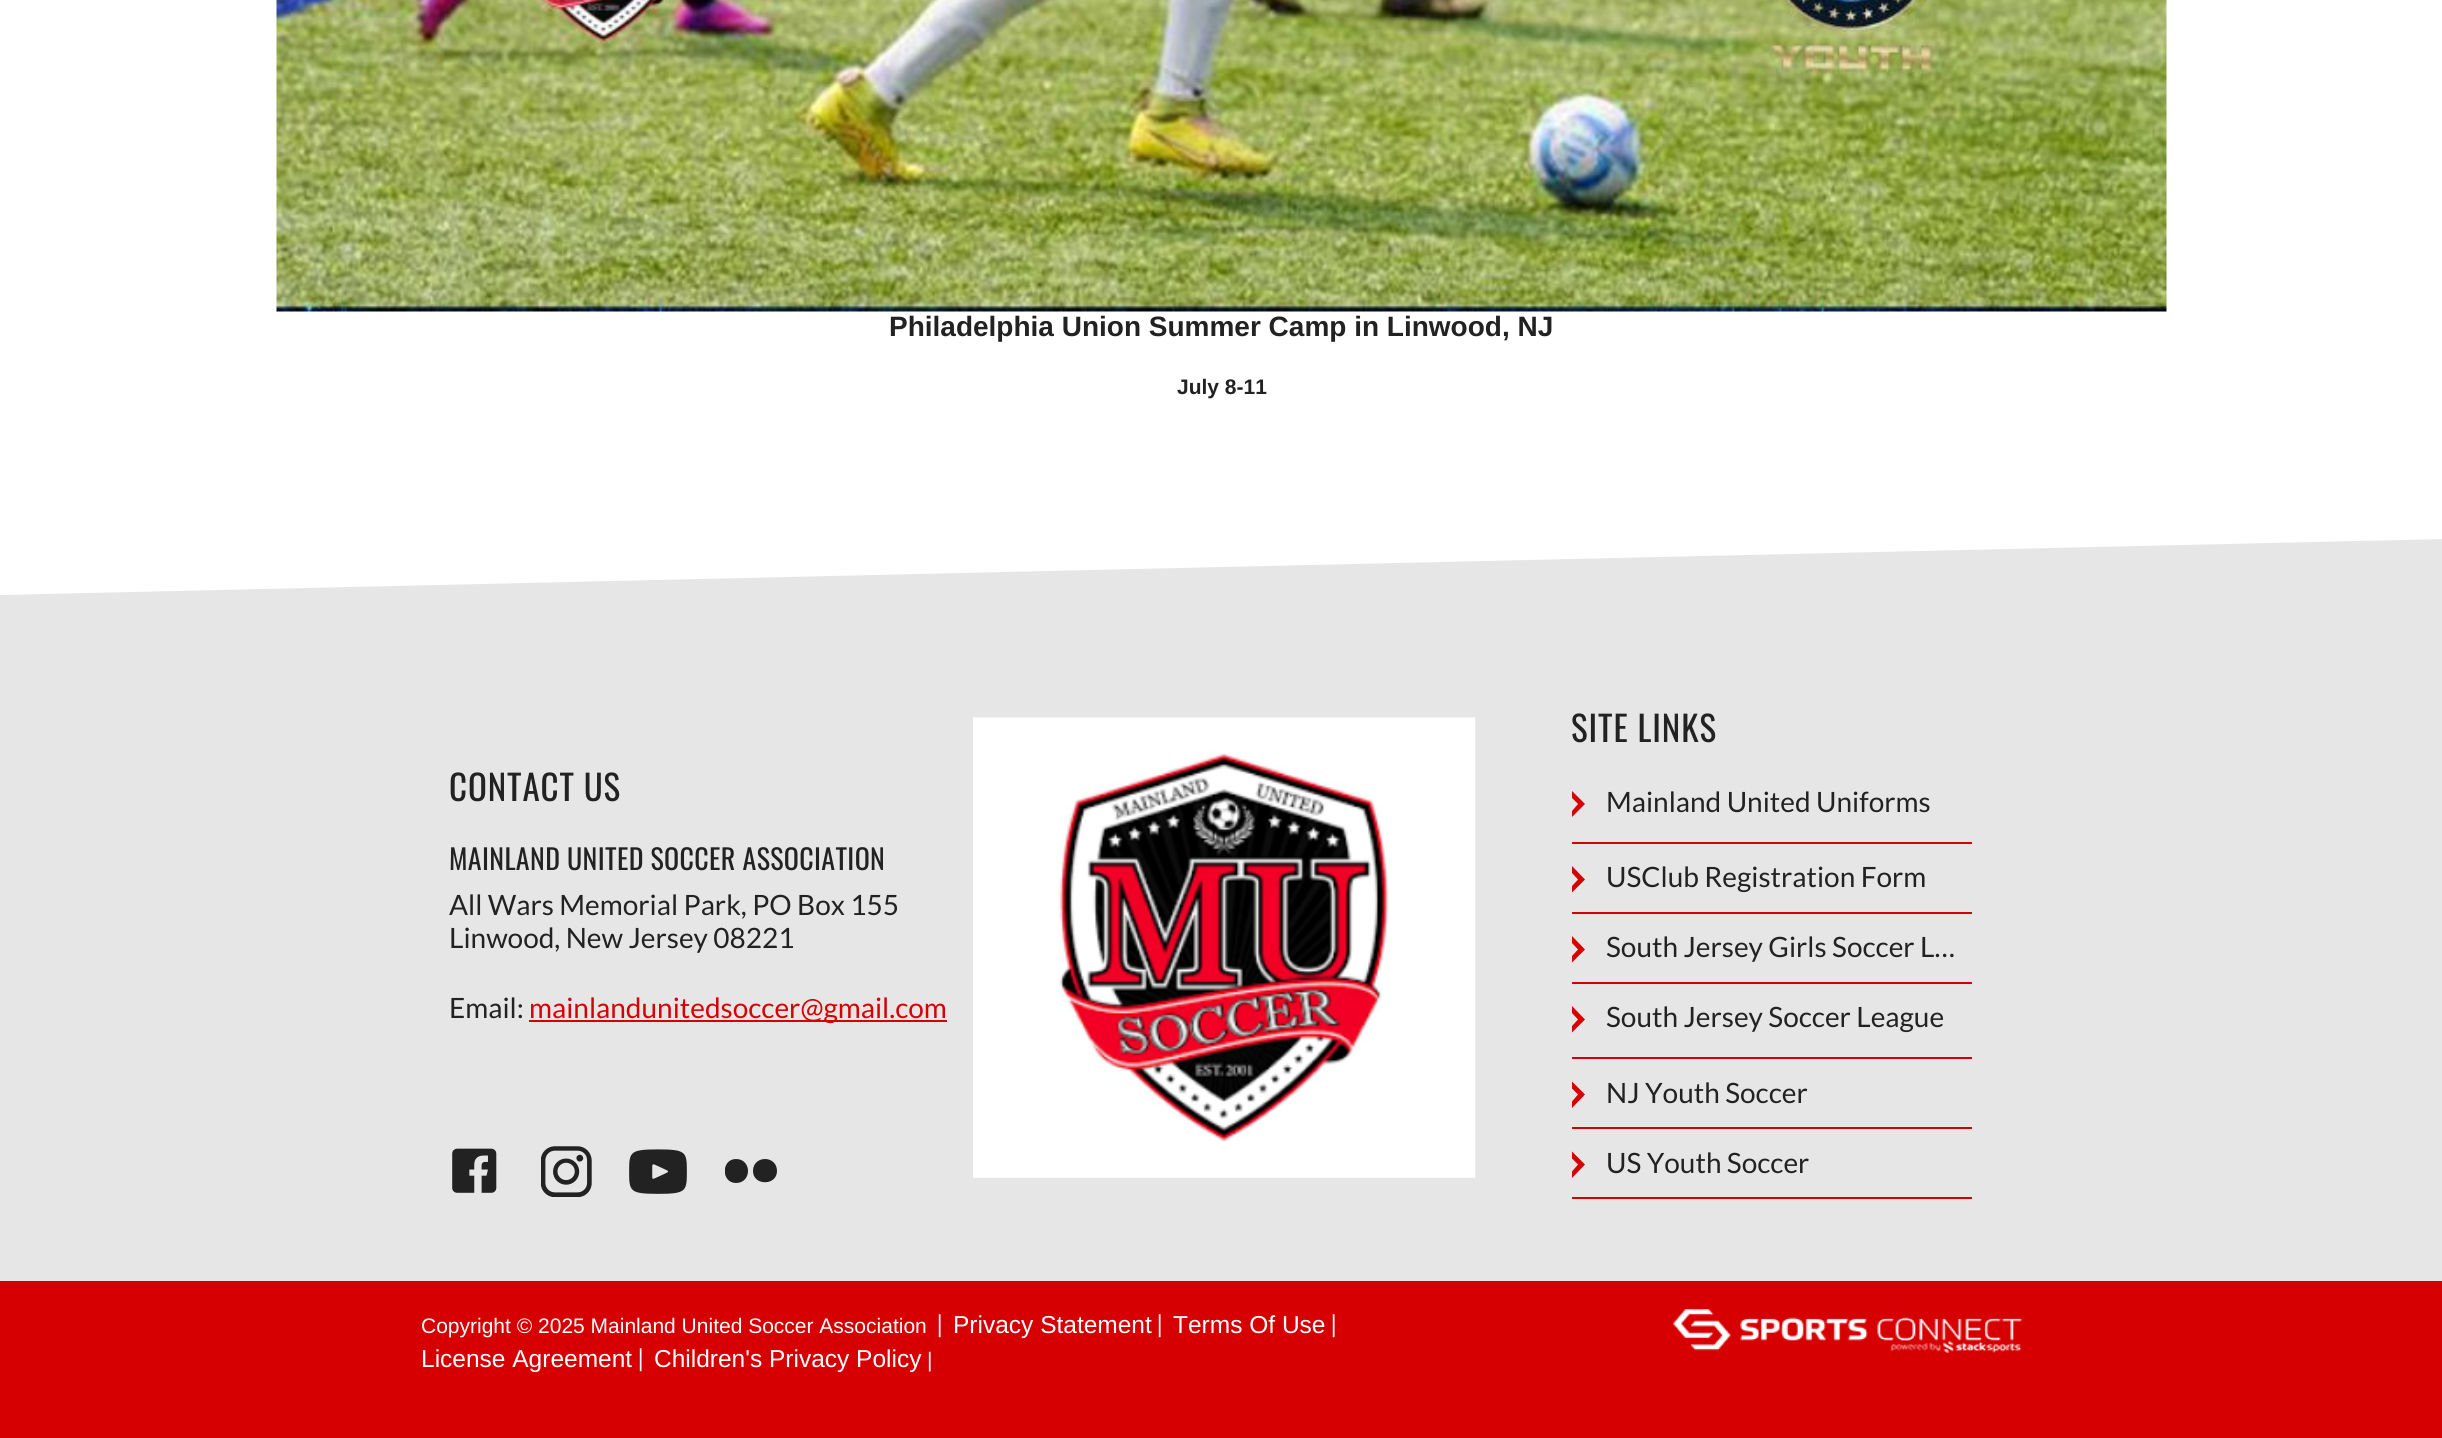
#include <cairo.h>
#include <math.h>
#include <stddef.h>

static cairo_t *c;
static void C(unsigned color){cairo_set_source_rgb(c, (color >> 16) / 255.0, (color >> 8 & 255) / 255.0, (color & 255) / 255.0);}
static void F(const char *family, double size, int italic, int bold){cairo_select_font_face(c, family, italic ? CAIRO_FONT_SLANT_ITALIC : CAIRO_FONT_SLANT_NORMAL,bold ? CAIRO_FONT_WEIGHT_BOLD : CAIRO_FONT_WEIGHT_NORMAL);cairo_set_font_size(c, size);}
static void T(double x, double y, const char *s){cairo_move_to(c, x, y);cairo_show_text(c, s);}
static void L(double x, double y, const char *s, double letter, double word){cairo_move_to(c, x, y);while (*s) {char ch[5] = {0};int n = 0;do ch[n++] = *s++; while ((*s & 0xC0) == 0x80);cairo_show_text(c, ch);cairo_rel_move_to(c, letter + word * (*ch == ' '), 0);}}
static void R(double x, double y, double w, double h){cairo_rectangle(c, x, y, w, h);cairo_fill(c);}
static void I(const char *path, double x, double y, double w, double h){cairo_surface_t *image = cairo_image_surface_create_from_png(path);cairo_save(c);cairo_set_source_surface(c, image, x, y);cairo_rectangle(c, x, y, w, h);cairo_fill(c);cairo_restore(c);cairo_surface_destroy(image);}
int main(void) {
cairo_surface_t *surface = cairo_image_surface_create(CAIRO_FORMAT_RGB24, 2442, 1438);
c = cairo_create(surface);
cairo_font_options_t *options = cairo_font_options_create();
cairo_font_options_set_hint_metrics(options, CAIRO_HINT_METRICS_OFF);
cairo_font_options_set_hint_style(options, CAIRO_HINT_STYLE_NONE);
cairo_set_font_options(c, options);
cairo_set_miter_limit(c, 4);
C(0xffffff);
cairo_paint(c);
I("1.png",276,0,1891,312);
F("Liberation Sans",28,0,1);
C(0x222222);
T(889,336,"Philadelphia Union Summer Camp in Linwood, NJ");
F("Liberation Sans",21,0,1);
T(1177,394,"July 8-11");
C(0xe6e6e6);
cairo_new_path(c);
cairo_move_to(c,0,595);
cairo_line_to(c,0,1281);
cairo_line_to(c,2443,1281);
cairo_line_to(c,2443,539);
cairo_close_path(c);
cairo_fill(c);
F("Oswald",35,0,0);
C(0x222222);
L(449,801,"CONTACT US",.9,0);
F("Oswald",28,0,0);
L(449,870,"MAINLAND UNITED SOCCER ASSOCIATION",.35,0);
F("Lato",28,0,0);
T(449,915,"All Wars Memorial Park, PO Box 155");
T(449,948,"Linwood, New Jersey 08221");
T(449,1018,"Email:");
C(0xd60002);
R(529,1020,418,2);
T(529,1018,"mainlandunitedsoccer@gmail.com");
I("2.png",452,1148,45,45);
I("3.png",541,1146,51,51);
I("4.png",629,1149,58,45);
cairo_save(c);
cairo_rectangle(c,725,1159,52,24);
cairo_clip(c);
C(0x222222);
cairo_new_path(c);
cairo_move_to(c,777,1171);
cairo_curve_to(c,777,1186,753,1186,753,1171);
cairo_curve_to(c,753,1155,777,1155,777,1171);
cairo_close_path(c);
cairo_move_to(c,736,1159);
cairo_curve_to(c,721,1159,721,1183,736,1183);
cairo_curve_to(c,752,1183,752,1159,736,1159);
cairo_close_path(c);
cairo_fill(c);
cairo_restore(c);
I("5.png",973,717,503,461);
F("Oswald",35,0,0);
C(0x222222);
L(1571,742,"SITE LINKS",.9,0);
C(0xd60002);
R(1572,842,400,2);
cairo_new_path(c);
cairo_move_to(c,1572,791);
cairo_line_to(c,1585,804);
cairo_line_to(c,1572,817);
cairo_line_to(c,1572,811);
cairo_line_to(c,1578,804);
cairo_line_to(c,1572,798);
cairo_close_path(c);
cairo_fill(c);
F("Lato",28,0,0);
C(0x222222);
T(1606,812,"Mainland United Uniforms");
C(0xd60002);
R(1572,912,400,2);
cairo_new_path(c);
cairo_move_to(c,1572,866);
cairo_line_to(c,1585,879.5);
cairo_line_to(c,1572,892.5);
cairo_line_to(c,1572,886);
cairo_line_to(c,1578,879.5);
cairo_line_to(c,1572,873);
cairo_close_path(c);
cairo_fill(c);
C(0x222222);
T(1606,887,"USClub Registration Form");
C(0xd60002);
R(1572,982,400,2);
cairo_new_path(c);
cairo_move_to(c,1572,936);
cairo_line_to(c,1585,949.5);
cairo_line_to(c,1572,962.5);
cairo_line_to(c,1572,956);
cairo_line_to(c,1578,949.5);
cairo_line_to(c,1572,943);
cairo_close_path(c);
cairo_fill(c);
C(0x222222);
T(1606,957,"South Jersey Girls Soccer L…");
C(0xd60002);
R(1572,1057,400,2);
cairo_new_path(c);
cairo_move_to(c,1572,1006);
cairo_line_to(c,1585,1019.5);
cairo_line_to(c,1572,1032.5);
cairo_line_to(c,1572,1026);
cairo_line_to(c,1578,1019.5);
cairo_line_to(c,1572,1013);
cairo_close_path(c);
cairo_fill(c);
C(0x222222);
T(1606,1027,"South Jersey Soccer League");
C(0xd60002);
R(1572,1127,400,2);
cairo_new_path(c);
cairo_move_to(c,1572,1081.5);
cairo_line_to(c,1585,1094.5);
cairo_line_to(c,1572,1108);
cairo_line_to(c,1572,1101.5);
cairo_line_to(c,1578,1094.5);
cairo_line_to(c,1572,1088.5);
cairo_close_path(c);
cairo_fill(c);
C(0x222222);
T(1606,1103,"NJ Youth Soccer");
C(0xd60002);
R(1572,1197,400,2);
cairo_new_path(c);
cairo_move_to(c,1572,1151.5);
cairo_line_to(c,1585,1164.5);
cairo_line_to(c,1572,1178);
cairo_line_to(c,1572,1171.5);
cairo_line_to(c,1578,1164.5);
cairo_line_to(c,1572,1158.5);
cairo_close_path(c);
cairo_fill(c);
C(0x222222);
T(1606,1173,"US Youth Soccer");
C(0xd60002);
R(0,1281,2442,157);
F("Liberation Sans",21,0,0);
C(0xffffff);
T(421,1333,"Copyright © 2025 Mainland United Soccer Association");
F("Lato",24.5,0,0);
T(936,1333,"|");
F("Liberation Sans",24.5,0,0);
T(953,1333,"Privacy Statement");
F("Lato",24.5,0,0);
T(1156,1333,"|");
F("Liberation Sans",24.5,0,0);
T(1173,1333,"Terms Of Use");
F("Lato",24.5,0,0);
T(1330,1333,"|");
F("Liberation Sans",24.5,0,0);
T(421,1367,"License Agreement");
F("Lato",24.5,0,0);
T(637,1367,"|");
F("Liberation Sans",24.5,0,0);
T(654,1367,"Children's Privacy Policy");
F("Liberation Sans",21,0,0);
T(927,1367,"|");
I("6.png",1673,1309,349,44);
cairo_surface_write_to_png(surface, "o.png");
cairo_font_options_destroy(options);
cairo_destroy(c);
cairo_surface_destroy(surface);
return 0;
}
